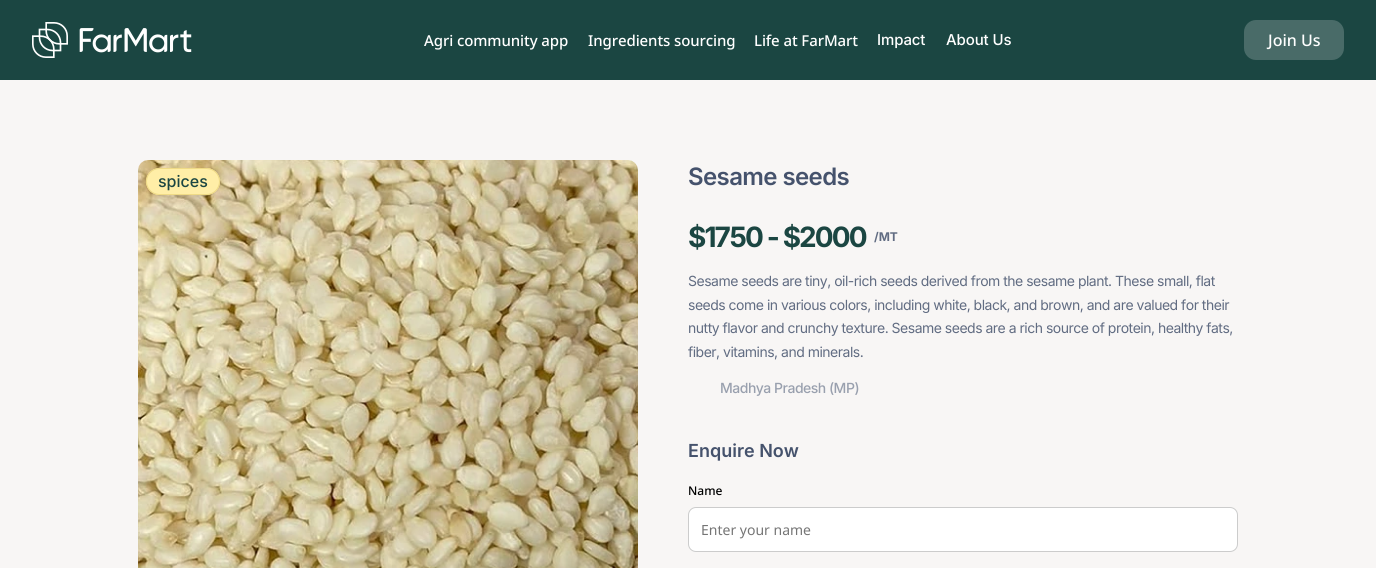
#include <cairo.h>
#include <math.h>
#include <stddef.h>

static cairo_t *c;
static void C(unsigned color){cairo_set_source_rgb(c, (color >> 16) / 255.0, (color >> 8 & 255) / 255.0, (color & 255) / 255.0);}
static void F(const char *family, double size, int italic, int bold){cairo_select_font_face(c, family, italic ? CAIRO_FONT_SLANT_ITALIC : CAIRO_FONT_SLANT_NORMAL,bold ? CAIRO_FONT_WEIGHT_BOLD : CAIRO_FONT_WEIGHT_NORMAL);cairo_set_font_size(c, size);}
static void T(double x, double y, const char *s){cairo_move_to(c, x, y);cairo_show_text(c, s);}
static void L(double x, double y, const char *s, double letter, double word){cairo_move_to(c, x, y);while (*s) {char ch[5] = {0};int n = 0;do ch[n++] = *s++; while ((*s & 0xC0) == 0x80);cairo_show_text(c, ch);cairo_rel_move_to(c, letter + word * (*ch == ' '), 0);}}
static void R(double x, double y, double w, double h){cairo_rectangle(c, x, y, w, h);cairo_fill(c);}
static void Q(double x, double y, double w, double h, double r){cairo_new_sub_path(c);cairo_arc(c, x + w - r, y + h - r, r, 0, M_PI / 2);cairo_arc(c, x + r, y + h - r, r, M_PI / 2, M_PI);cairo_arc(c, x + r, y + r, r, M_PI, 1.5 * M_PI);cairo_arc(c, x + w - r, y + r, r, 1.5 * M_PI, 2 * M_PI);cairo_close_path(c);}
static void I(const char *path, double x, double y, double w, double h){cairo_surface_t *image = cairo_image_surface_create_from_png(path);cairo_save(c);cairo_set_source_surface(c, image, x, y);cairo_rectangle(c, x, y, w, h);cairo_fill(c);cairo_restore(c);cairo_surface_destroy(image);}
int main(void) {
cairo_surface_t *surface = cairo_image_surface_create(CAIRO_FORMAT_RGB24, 1376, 568);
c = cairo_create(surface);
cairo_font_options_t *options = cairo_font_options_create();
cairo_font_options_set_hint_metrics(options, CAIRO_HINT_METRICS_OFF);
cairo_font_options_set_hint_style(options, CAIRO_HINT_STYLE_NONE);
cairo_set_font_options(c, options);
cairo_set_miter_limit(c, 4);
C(0xf8f6f5);
cairo_paint(c);
C(0x1b4642);
R(0,0,1376,80);
I("1.png",32,22,36,36);
I("2.png",79,28,113,25);
F("Noto Sans Medium",15,0,0);
C(0xffffff);
L(424,46,"Agri community app",-.1,0);
L(588,46,"Ingredients sourcing",-.1,0);
L(754,46,"Life at FarMart",-.1,0);
F("Inter Medium",15,0,0);
L(877,45,"Impact",-.1,0);
L(946,45,"About Us",-.1,0);
C(0x496b68);
Q(1244,20,100,40,12);
cairo_fill(c);
F("Noto Sans Medium",16,0,0);
C(0xffffff);
T(1268,46,"Join Us");
I("3.png",138,160,500,408);
C(0xffeea7);
Q(146,168,74,27,13.5);
cairo_fill(c);
Q(146.5,168.5,73,26,13);
C(0xefda86);
cairo_set_line_width(c,1);
cairo_stroke(c);
F("Inter Medium",16,0,0);
C(0x1b4642);
T(158,187,"spices");
F("Inter SemiBold",24,0,0);
C(0x45526c);
L(688,185,"Sesame seeds",-.6,0);
F("Inter",28,0,1);
C(0x1b4642);
L(688,247,"$1750 - $2000",-1.9,0);
F("Inter",12,0,1);
C(0x616c82);
T(874,241,"/MT");
F("Inter",14,0,0);
L(688,286,"Sesame seeds are tiny, oil-rich seeds derived from the sesame plant. These small, flat",-.5,0);
L(688,310,"seeds come in various colors, including white, black, and brown, and are valued for their",-.5,0);
L(688,333,"nutty flavor and crunchy texture. Sesame seeds are a rich source of protein, healthy fats,",-.5,0);
L(688,357,"fiber, vitamins, and minerals.",-.5,0);
F("Inter Medium",14,0,0);
C(0x99a0ae);
L(720,393,"Madhya Pradesh (MP)",-.5,0);
F("Inter SemiBold",18,0,0);
C(0x45526c);
T(688,457,"Enquire Now");
F("Noto Sans Medium",12,0,0);
C(0x000000);
T(688,495,"Name");
C(0xffffff);
Q(688.5,507.5,549,44,7.5);
cairo_fill_preserve(c);
C(0xcccccc);
cairo_stroke(c);
F("Noto Sans",14,0,0);
C(0x757575);
T(701,535,"Enter your name");
cairo_surface_write_to_png(surface, "o.png");
cairo_font_options_destroy(options);
cairo_destroy(c);
cairo_surface_destroy(surface);
return 0;
}
